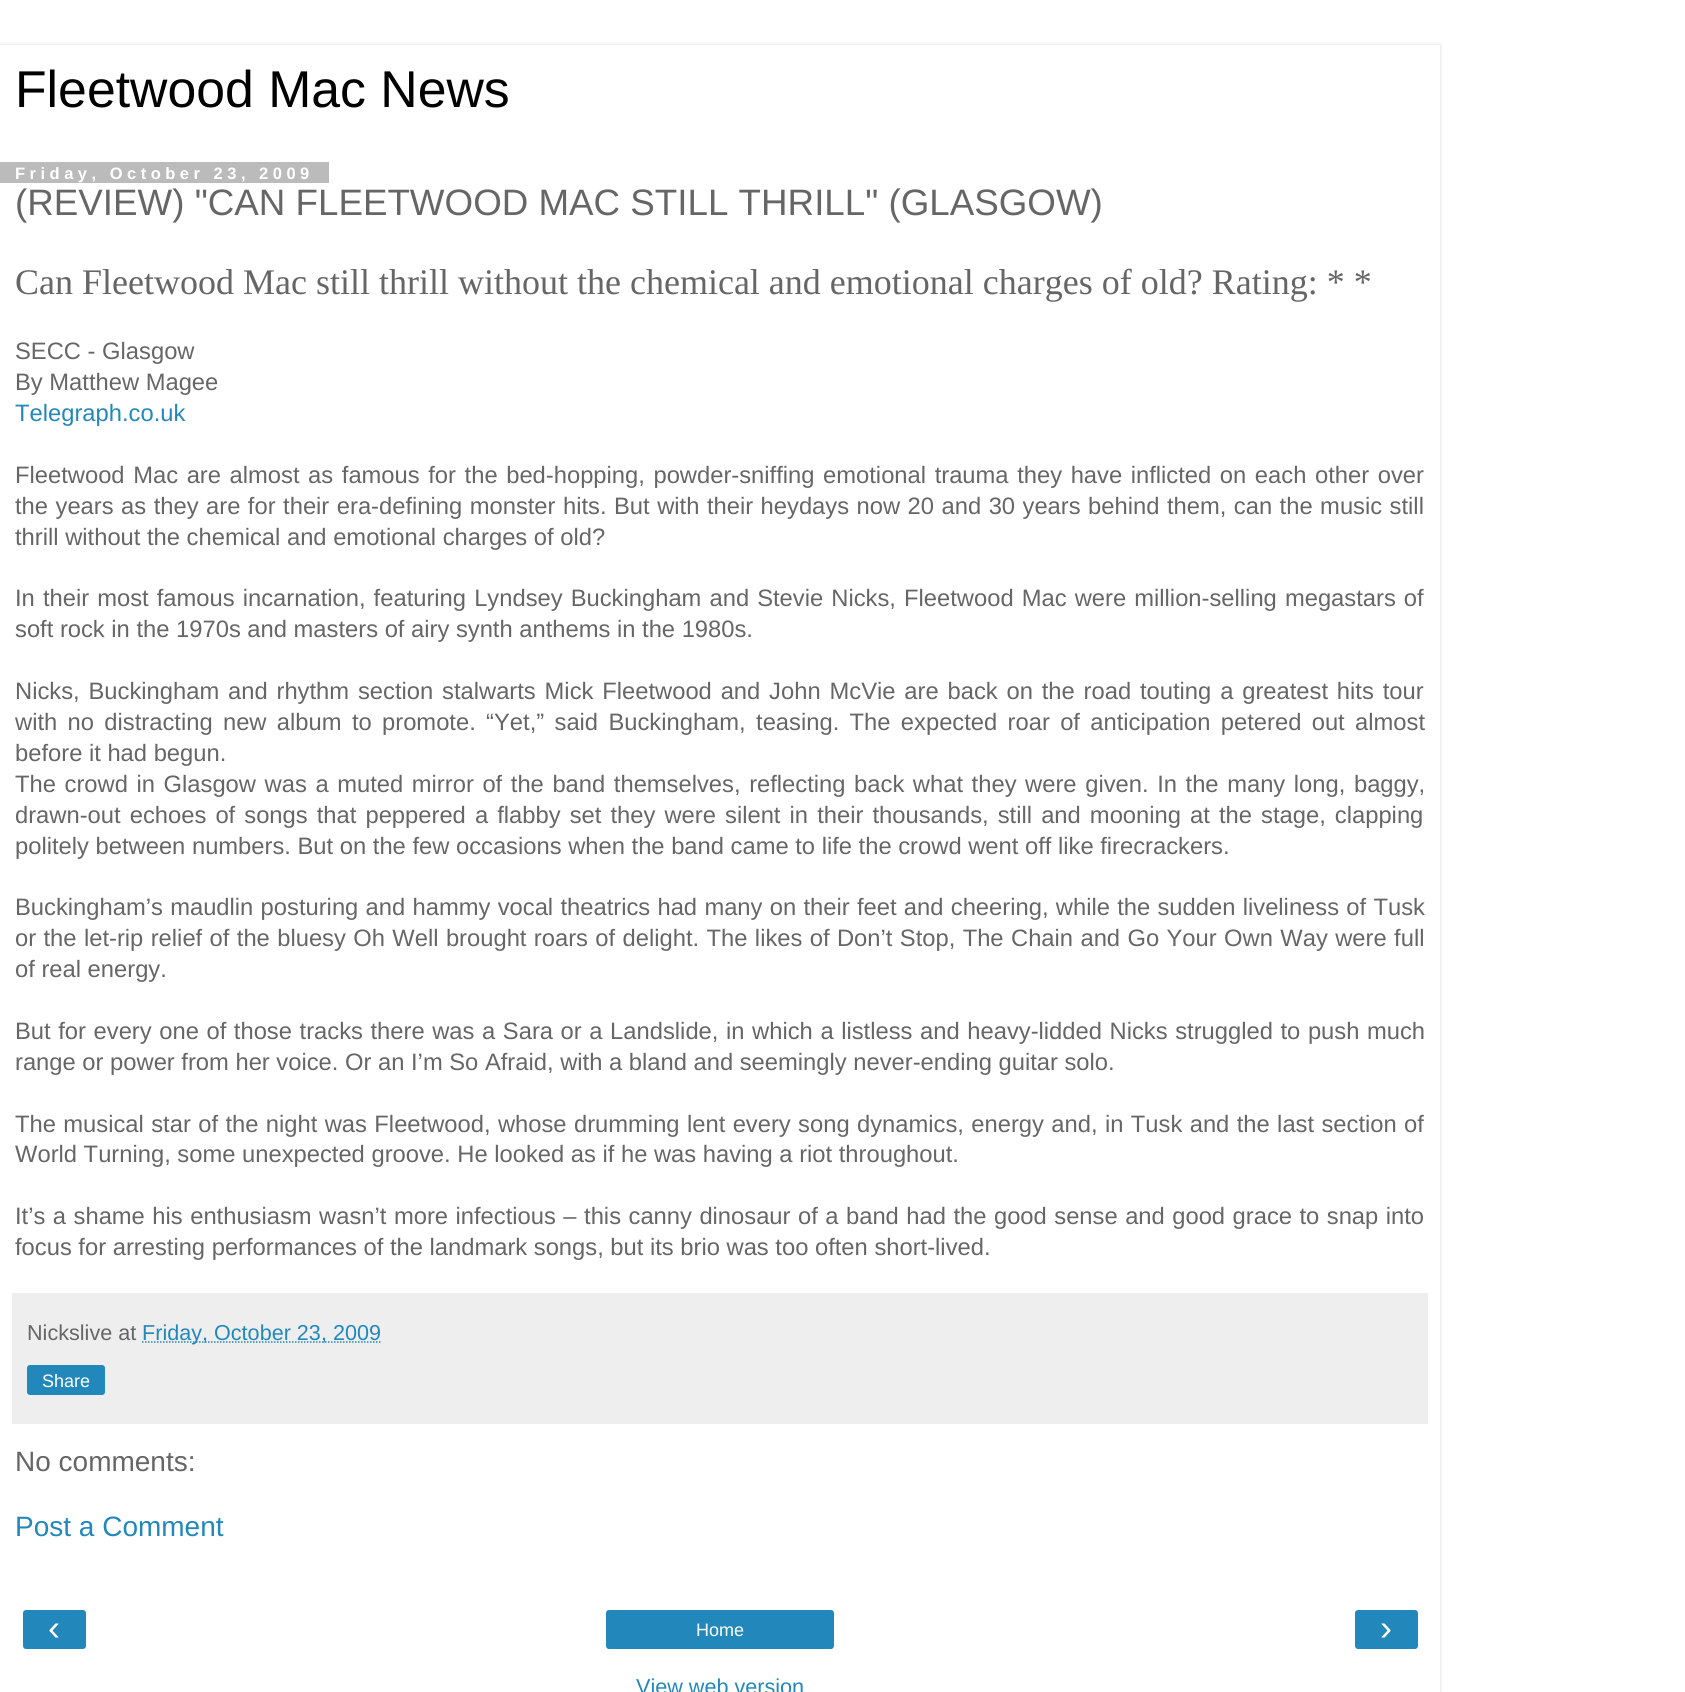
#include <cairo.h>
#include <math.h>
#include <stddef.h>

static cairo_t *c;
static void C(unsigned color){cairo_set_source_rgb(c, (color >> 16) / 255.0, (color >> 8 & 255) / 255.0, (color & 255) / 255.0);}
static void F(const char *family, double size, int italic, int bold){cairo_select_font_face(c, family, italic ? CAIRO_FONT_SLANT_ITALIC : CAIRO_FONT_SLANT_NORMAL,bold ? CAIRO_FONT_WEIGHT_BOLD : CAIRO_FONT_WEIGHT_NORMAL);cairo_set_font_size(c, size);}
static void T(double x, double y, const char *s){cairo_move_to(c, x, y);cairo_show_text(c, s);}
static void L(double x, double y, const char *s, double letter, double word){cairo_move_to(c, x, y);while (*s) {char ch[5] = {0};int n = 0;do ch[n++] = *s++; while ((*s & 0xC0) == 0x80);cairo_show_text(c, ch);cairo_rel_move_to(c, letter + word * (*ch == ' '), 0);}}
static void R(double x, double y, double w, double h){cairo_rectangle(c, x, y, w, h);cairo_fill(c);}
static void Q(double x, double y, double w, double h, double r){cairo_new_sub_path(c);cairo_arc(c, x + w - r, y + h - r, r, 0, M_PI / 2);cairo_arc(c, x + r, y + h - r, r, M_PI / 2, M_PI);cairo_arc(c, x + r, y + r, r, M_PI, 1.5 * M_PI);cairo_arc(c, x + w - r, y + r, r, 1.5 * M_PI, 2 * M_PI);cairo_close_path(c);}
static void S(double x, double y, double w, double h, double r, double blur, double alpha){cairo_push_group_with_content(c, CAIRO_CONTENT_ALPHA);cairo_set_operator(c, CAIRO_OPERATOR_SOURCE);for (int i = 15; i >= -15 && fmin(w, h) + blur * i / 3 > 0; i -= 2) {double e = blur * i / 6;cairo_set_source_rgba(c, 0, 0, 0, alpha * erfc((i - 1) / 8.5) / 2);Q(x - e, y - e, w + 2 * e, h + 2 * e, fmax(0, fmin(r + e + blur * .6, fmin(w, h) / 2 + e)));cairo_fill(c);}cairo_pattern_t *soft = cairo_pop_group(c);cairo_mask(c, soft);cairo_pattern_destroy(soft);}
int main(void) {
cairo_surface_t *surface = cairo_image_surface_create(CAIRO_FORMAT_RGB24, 1685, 1692);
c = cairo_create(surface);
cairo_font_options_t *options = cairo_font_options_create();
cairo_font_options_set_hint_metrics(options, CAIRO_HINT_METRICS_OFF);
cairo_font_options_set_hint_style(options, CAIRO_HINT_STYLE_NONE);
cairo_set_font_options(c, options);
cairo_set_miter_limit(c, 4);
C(0xffffff);
cairo_paint(c);
cairo_save(c);
cairo_set_fill_rule(c,CAIRO_FILL_RULE_EVEN_ODD);
cairo_new_path(c);
cairo_move_to(c,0,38);
cairo_line_to(c,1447,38);
cairo_line_to(c,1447,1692);
cairo_line_to(c,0,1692);
cairo_close_path(c);
cairo_move_to(c,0,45);
cairo_line_to(c,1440,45);
cairo_line_to(c,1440,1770);
cairo_line_to(c,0,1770);
cairo_close_path(c);
cairo_clip(c);
C(0x000000);
S(0,45,1440,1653,0,2,.15);
cairo_restore(c);
F("Liberation Sans",51.75,0,0);
C(0x000000);
T(15,107,"Fleetwood Mac News");
C(0xbbbbbb);
R(0,162,329,21);
F("Liberation Sans",16.5,0,1);
C(0xffffff);
L(15,179,"Friday, October 23, 2009",4.5,0);
F("Liberation Sans",36.75,0,0);
C(0x666666);
T(15,215,"(REVIEW) \"CAN FLEETWOOD MAC STILL THRILL\" (GLASGOW)");
F("Liberation Serif",36,0,0);
T(15,294,"Can Fleetwood Mac still thrill without the chemical and emotional charges of old? Rating: * *");
F("Liberation Sans",23.75,0,0);
T(15,359,"SECC - Glasgow");
T(15,390,"By Matthew Magee");
C(0x2288bb);
T(15,421,"Telegraph.co.uk");
C(0x666666);
L(15,483,"Fleetwood Mac are almost as famous for the bed-hopping, powder-sniffing emotional trauma they have inflicted on each other over",0,2);
L(15,514,"the years as they are for their era-defining monster hits. But with their heydays now 20 and 30 years behind them, can the music still",0,.9);
T(15,545,"thrill without the chemical and emotional charges of old?");
L(15,606,"In their most famous incarnation, featuring Lyndsey Buckingham and Stevie Nicks, Fleetwood Mac were million-selling megastars of",0,1.5);
T(15,637,"soft rock in the 1970s and masters of airy synth anthems in the 1980s.");
L(15,699,"Nicks, Buckingham and rhythm section stalwarts Mick Fleetwood and John McVie are back on the road touting a greatest hits tour",0,2.25);
L(15,730,"with no distracting new album to promote. “Yet,” said Buckingham, teasing. The expected roar of anticipation petered out almost",0,3.75);
T(15,761,"before it had begun.");
L(15,792,"The crowd in Glasgow was a muted mirror of the band themselves, reflecting back what they were given. In the many long, baggy,",0,2);
L(15,823,"drawn-out echoes of songs that peppered a flabby set they were silent in their thousands, still and mooning at the stage, clapping",0,2.5);
T(15,854,"politely between numbers. But on the few occasions when the band came to life the crowd went off like firecrackers.");
L(15,915,"Buckingham’s maudlin posturing and hammy vocal theatrics had many on their feet and cheering, while the sudden liveliness of Tusk",0,.7);
L(15,946,"or the let-rip relief of the bluesy Oh Well brought roars of delight. The likes of Don’t Stop, The Chain and Go Your Own Way were full",0,.8);
T(15,977,"of real energy.");
L(15,1039,"But for every one of those tracks there was a Sara or a Landslide, in which a listless and heavy-lidded Nicks struggled to push much",0,1);
T(15,1070,"range or power from her voice. Or an I’m So Afraid, with a bland and seemingly never-ending guitar solo.");
L(15,1132,"The musical star of the night was Fleetwood, whose drumming lent every song dynamics, energy and, in Tusk and the last section of",0,.8);
T(15,1162,"World Turning, some unexpected groove. He looked as if he was having a riot throughout.");
L(15,1224,"It’s a shame his enthusiasm wasn’t more infectious – this canny dinosaur of a band had the good sense and good grace to snap into",0,.9);
T(15,1255,"focus for arresting performances of the landmark songs, but its brio was too often short-lived.");
C(0xeeeeee);
R(12,1293,1416,131);
F("Liberation Sans",21.6,0,0);
C(0x666666);
T(27,1340,"Nickslive at");
cairo_new_path(c);
cairo_move_to(c,142,1342);
cairo_line_to(c,381,1342);
C(0x2288bb);
cairo_set_line_width(c,1.5);
cairo_set_dash(c,(double[]){1.5,1.5},2,0);
cairo_stroke(c);
T(142,1340,"Friday, October 23, 2009");
Q(27,1365,78,30,3);
cairo_fill(c);
F("Liberation Sans",18,0,0);
C(0xffffff);
T(42,1387,"Share");
F("Liberation Sans",28,0,0);
C(0x666666);
T(15,1471,"No comments:");
C(0x2288bb);
T(15,1536,"Post a Comment");
Q(23,1610,63,39,3);
cairo_fill(c);
F("Liberation Sans",36,0,0);
C(0xffffff);
T(48,1640,"‹");
C(0x2288bb);
Q(606,1610,228,39,3);
cairo_fill(c);
F("Liberation Sans",18,0,0);
C(0xffffff);
T(696,1636,"Home");
C(0x2288bb);
Q(1355,1610,63,39,3);
cairo_fill(c);
F("Liberation Sans",36,0,0);
C(0xffffff);
T(1380,1640,"›");
F("Liberation Sans",21.6,0,0);
C(0x2288bb);
T(636,1694,"View web version");
cairo_surface_write_to_png(surface, "o.png");
cairo_font_options_destroy(options);
cairo_destroy(c);
cairo_surface_destroy(surface);
return 0;
}
